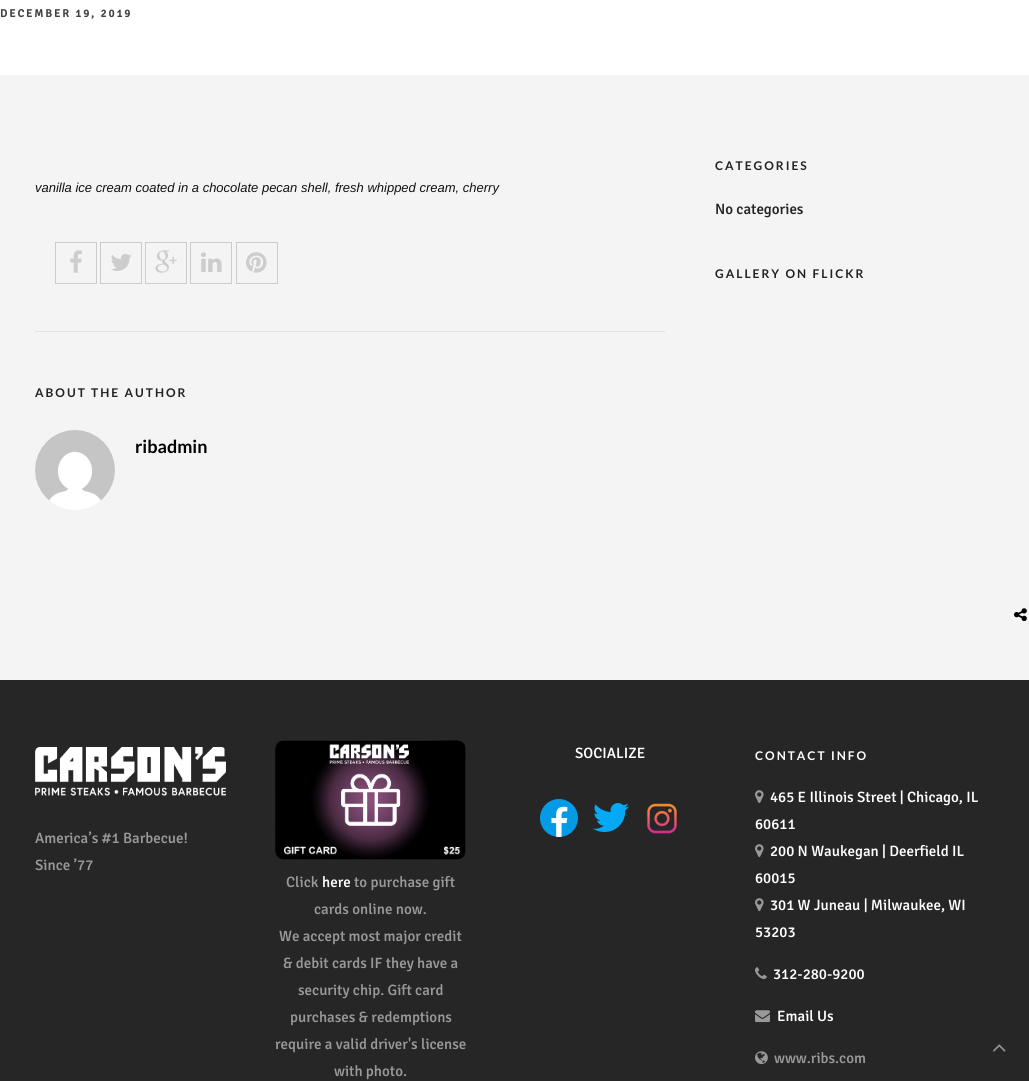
#include <cairo.h>
#include <math.h>
#include <stddef.h>

static cairo_t *c;
static void C(unsigned color){cairo_set_source_rgb(c, (color >> 16) / 255.0, (color >> 8 & 255) / 255.0, (color & 255) / 255.0);}
static void F(const char *family, double size, int italic, int bold){cairo_select_font_face(c, family, italic ? CAIRO_FONT_SLANT_ITALIC : CAIRO_FONT_SLANT_NORMAL,bold ? CAIRO_FONT_WEIGHT_BOLD : CAIRO_FONT_WEIGHT_NORMAL);cairo_set_font_size(c, size);}
static void T(double x, double y, const char *s){cairo_move_to(c, x, y);cairo_show_text(c, s);}
static void L(double x, double y, const char *s, double letter, double word){cairo_move_to(c, x, y);while (*s) {char ch[5] = {0};int n = 0;do ch[n++] = *s++; while ((*s & 0xC0) == 0x80);cairo_show_text(c, ch);cairo_rel_move_to(c, letter + word * (*ch == ' '), 0);}}
static void R(double x, double y, double w, double h){cairo_rectangle(c, x, y, w, h);cairo_fill(c);}
static void I(const char *path, double x, double y, double w, double h){cairo_surface_t *image = cairo_image_surface_create_from_png(path);cairo_save(c);cairo_set_source_surface(c, image, x, y);cairo_rectangle(c, x, y, w, h);cairo_fill(c);cairo_restore(c);cairo_surface_destroy(image);}
int main(void) {
cairo_surface_t *surface = cairo_image_surface_create(CAIRO_FORMAT_RGB24, 1029, 1081);
c = cairo_create(surface);
cairo_font_options_t *options = cairo_font_options_create();
cairo_font_options_set_hint_metrics(options, CAIRO_HINT_METRICS_OFF);
cairo_font_options_set_hint_style(options, CAIRO_HINT_STYLE_NONE);
cairo_set_font_options(c, options);
cairo_set_miter_limit(c, 4);
C(0xf5f4f4);
cairo_paint(c);
C(0xffffff);
R(0,0,1029,75);
F("Signika",11,0,1);
C(0x424242);
L(0,17,"DECEMBER 19, 2019",2,0);
F("Liberation Sans",13,1,0);
C(0x111111);
T(35,192,"vanilla ice cream coated in a chocolate pecan shell, fresh whipped cream, cherry");
cairo_rectangle(c,55.5,242.5,41,41);
C(0xcccccc);
cairo_set_line_width(c,1);
cairo_stroke(c);
I("1.png",70,250,12,23);
cairo_rectangle(c,100.5,242.5,41,41);
cairo_stroke(c);
I("2.png",111,253,21,18);
cairo_rectangle(c,145.5,242.5,41,41);
cairo_stroke(c);
I("3.png",155,250,22,23);
cairo_rectangle(c,190.5,242.5,41,41);
cairo_stroke(c);
I("4.png",201,252,21,20);
cairo_rectangle(c,236.5,242.5,41,41);
cairo_stroke(c);
I("5.png",246,252,21,21);
C(0xe1e1e1);
R(35,331,630,1);
F("Lato",12,0,1);
C(0x222222);
L(35,397,"ABOUT THE AUTHOR",2,0);
I("6.png",35,430,80,80);
F("Lato",18,0,1);
C(0x000000);
T(135,453,"ribadmin");
F("Lato",12,0,1);
C(0x222222);
L(715,170,"CATEGORIES",2,0);
F("Signika Medium",15,0,0);
T(715,214,"No categories");
F("Lato",12,0,1);
L(715,278,"GALLERY ON FLICKR",2,0);
I("7.png",1014,608,13,14);
C(0x262626);
R(0,680,1029,401);
I("8.png",35,747,191,49);
F("Signika Medium",15,0,0);
C(0x999999);
T(35,843,"America’s #1 Barbecue!");
T(35,870,"Since ’77");
C(0xffffff);
T(575,758,"SOCIALIZE");
I("9.png",540,799,38,38);
I("10.png",593,803,36,29);
I("11.png",647,803,30,31);
F("Lato",12,0,1);
L(755,760,"CONTACT INFO",2,0);
I("12.png",755,790,9,13);
F("Signika Medium",15,0,0);
T(770,802,"465 E Illinois Street | Chicago, IL");
T(755,829,"60611");
I("12.png",755,844,9,13);
T(770,856,"200 N Waukegan | Deerfield IL");
T(755,883,"60015");
I("12.png",755,898,9,13);
T(770,910,"301 W Juneau | Milwaukee, WI");
T(755,937,"53203");
I("13.png",755,967,12,12);
T(773,979,"312-280-9200");
I("14.png",755,1010,15,13);
T(777,1021,"Email Us");
I("15.png",755,1051,13,14);
C(0x999999);
T(774,1063,"www.ribs.com");
I("16.png",275,740,191,120);
T(286,887,"Click");
C(0xffffff);
T(322,887,"here");
C(0x999999);
T(354,887,"to purchase gift");
T(314,914,"cards online now.");
T(279,941,"We accept most major credit");
T(283,968,"& debit cards IF they have a");
T(298,995,"security chip. Gift card");
T(290,1022,"purchases & redemptions");
T(275,1049,"require a valid driver's license");
T(334,1076,"with photo.");
I("17.png",993,1044,13,8);
cairo_surface_write_to_png(surface, "o.png");
cairo_font_options_destroy(options);
cairo_destroy(c);
cairo_surface_destroy(surface);
return 0;
}
